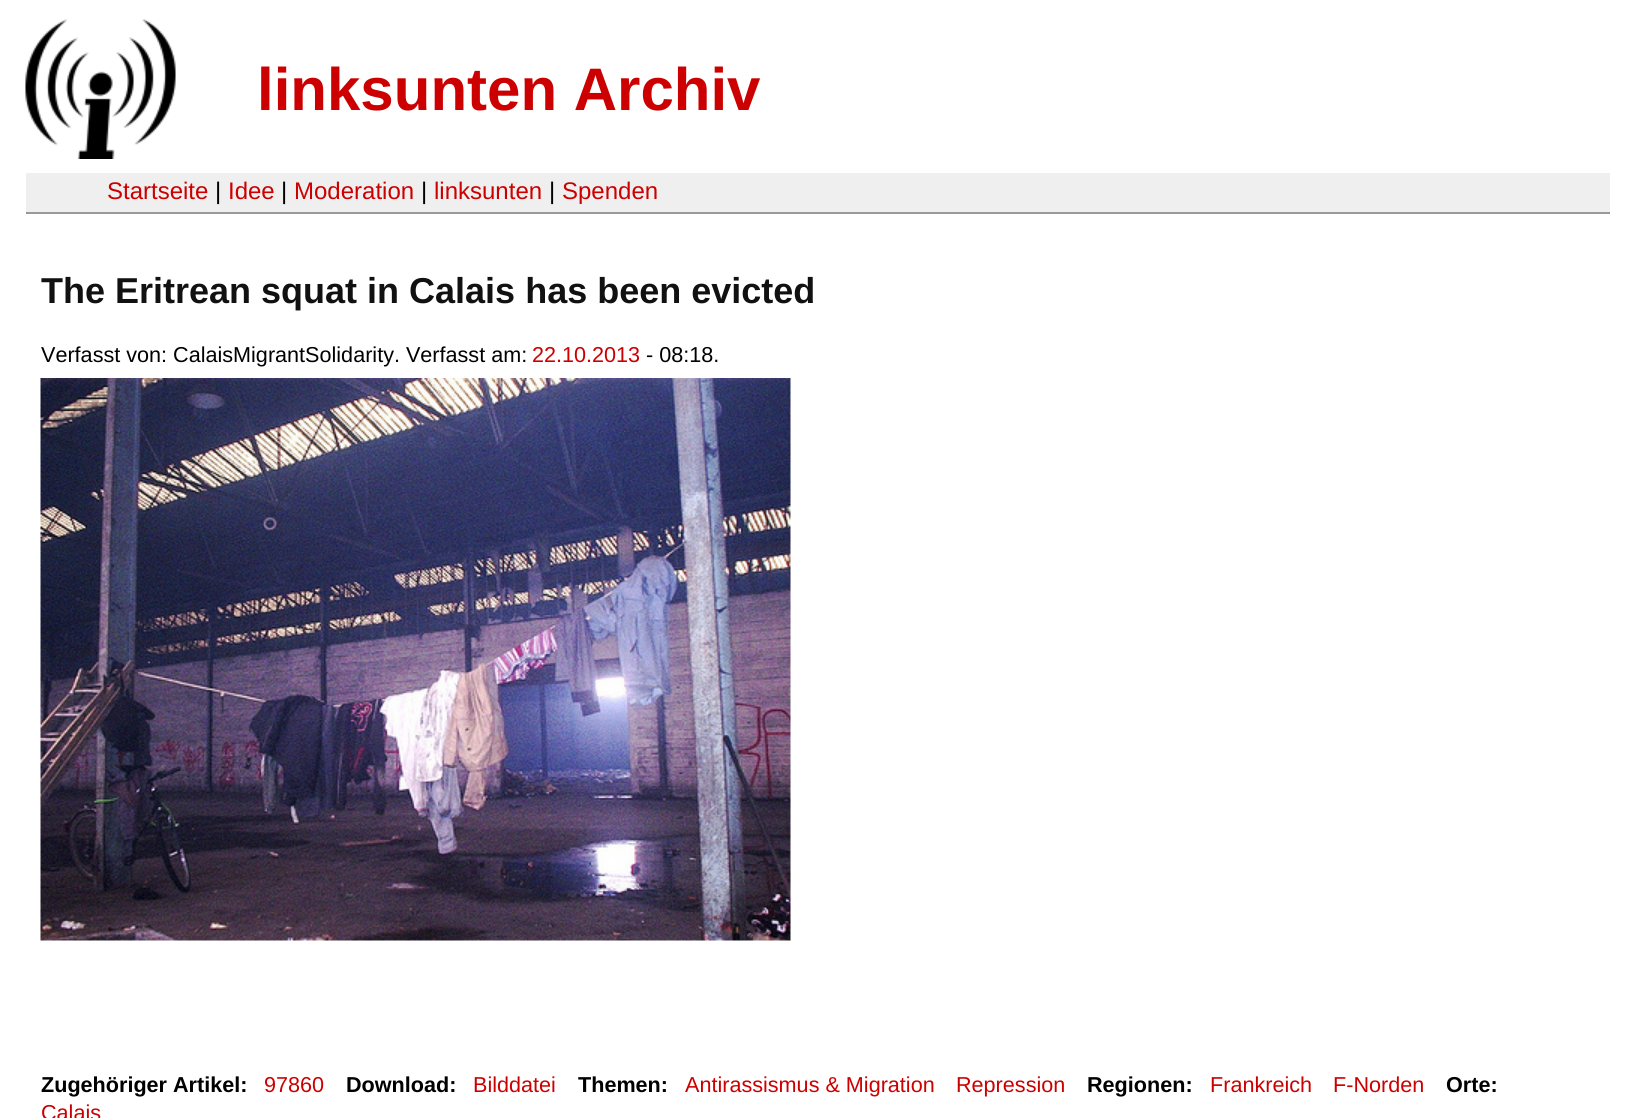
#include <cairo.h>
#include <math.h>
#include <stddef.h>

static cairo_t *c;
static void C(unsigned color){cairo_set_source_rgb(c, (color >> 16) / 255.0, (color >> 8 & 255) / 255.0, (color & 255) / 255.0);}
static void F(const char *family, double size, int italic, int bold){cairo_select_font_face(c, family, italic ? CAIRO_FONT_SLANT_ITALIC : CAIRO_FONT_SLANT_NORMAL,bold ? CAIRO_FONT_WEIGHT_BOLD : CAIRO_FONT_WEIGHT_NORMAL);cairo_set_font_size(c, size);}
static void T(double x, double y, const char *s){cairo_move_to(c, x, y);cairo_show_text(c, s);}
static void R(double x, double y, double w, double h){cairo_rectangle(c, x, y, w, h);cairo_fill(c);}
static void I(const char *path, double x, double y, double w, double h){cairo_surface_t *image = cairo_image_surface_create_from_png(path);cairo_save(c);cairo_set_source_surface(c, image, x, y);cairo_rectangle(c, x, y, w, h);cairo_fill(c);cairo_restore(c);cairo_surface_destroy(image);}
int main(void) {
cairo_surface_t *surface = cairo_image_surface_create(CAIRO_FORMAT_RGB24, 1635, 1118);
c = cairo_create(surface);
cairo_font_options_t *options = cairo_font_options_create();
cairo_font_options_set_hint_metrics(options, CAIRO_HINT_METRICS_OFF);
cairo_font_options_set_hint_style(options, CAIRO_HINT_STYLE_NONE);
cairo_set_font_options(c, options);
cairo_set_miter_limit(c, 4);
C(0xffffff);
cairo_paint(c);
I("1.png",25,19,151,140);
F("Liberation Sans",60,0,1);
C(0xcc0000);
T(257,110,"linksunten Archiv");
C(0xefefef);
R(26,173,1584,39);
C(0x999999);
R(26,212,1584,2);
F("Liberation Sans",24,0,0);
C(0xcc0000);
T(107,199,"Startseite");
C(0x000000);
T(215,199,"|");
C(0xcc0000);
T(228,199,"Idee");
C(0x000000);
T(281,199,"|");
C(0xcc0000);
T(294,199,"Moderation");
C(0x000000);
T(421,199,"|");
C(0xcc0000);
T(434,199,"linksunten");
C(0x000000);
T(549,199,"|");
C(0xcc0000);
T(562,199,"Spenden");
F("Liberation Sans",36,0,1);
C(0x111111);
T(41,303,"The Eritrean squat in Calais has been evicted");
F("Liberation Sans",21.6,0,0);
C(0x000000);
T(41,362,"Verfasst von: CalaisMigrantSolidarity. Verfasst am:");
C(0xcc0000);
T(532,362,"22.10.2013");
C(0x000000);
T(646,362,"- 08:18.");
I("2.png",40,378,751,563);
F("Liberation Sans",21.6,0,1);
T(41,1092,"Zugehöriger Artikel:");
F("Liberation Sans",21.6,0,0);
C(0xcc0000);
T(264,1092,"97860");
F("Liberation Sans",21.6,0,1);
C(0x000000);
T(346,1092,"Download:");
F("Liberation Sans",21.6,0,0);
C(0xcc0000);
T(473,1092,"Bilddatei");
F("Liberation Sans",21.6,0,1);
C(0x000000);
T(1446,1092,"Orte:");
F("Liberation Sans",21.6,0,0);
C(0xcc0000);
T(41,1120,"Calais");
F("Liberation Sans",21.6,0,1);
C(0x000000);
T(578,1092,"Themen:");
F("Liberation Sans",21.6,0,0);
C(0xcc0000);
T(685,1092,"Antirassismus & Migration");
T(956,1092,"Repression");
F("Liberation Sans",21.6,0,1);
C(0x000000);
T(1087,1092,"Regionen:");
F("Liberation Sans",21.6,0,0);
C(0xcc0000);
T(1210,1092,"Frankreich");
T(1333,1092,"F-Norden");
cairo_surface_write_to_png(surface, "o.png");
cairo_font_options_destroy(options);
cairo_destroy(c);
cairo_surface_destroy(surface);
return 0;
}
